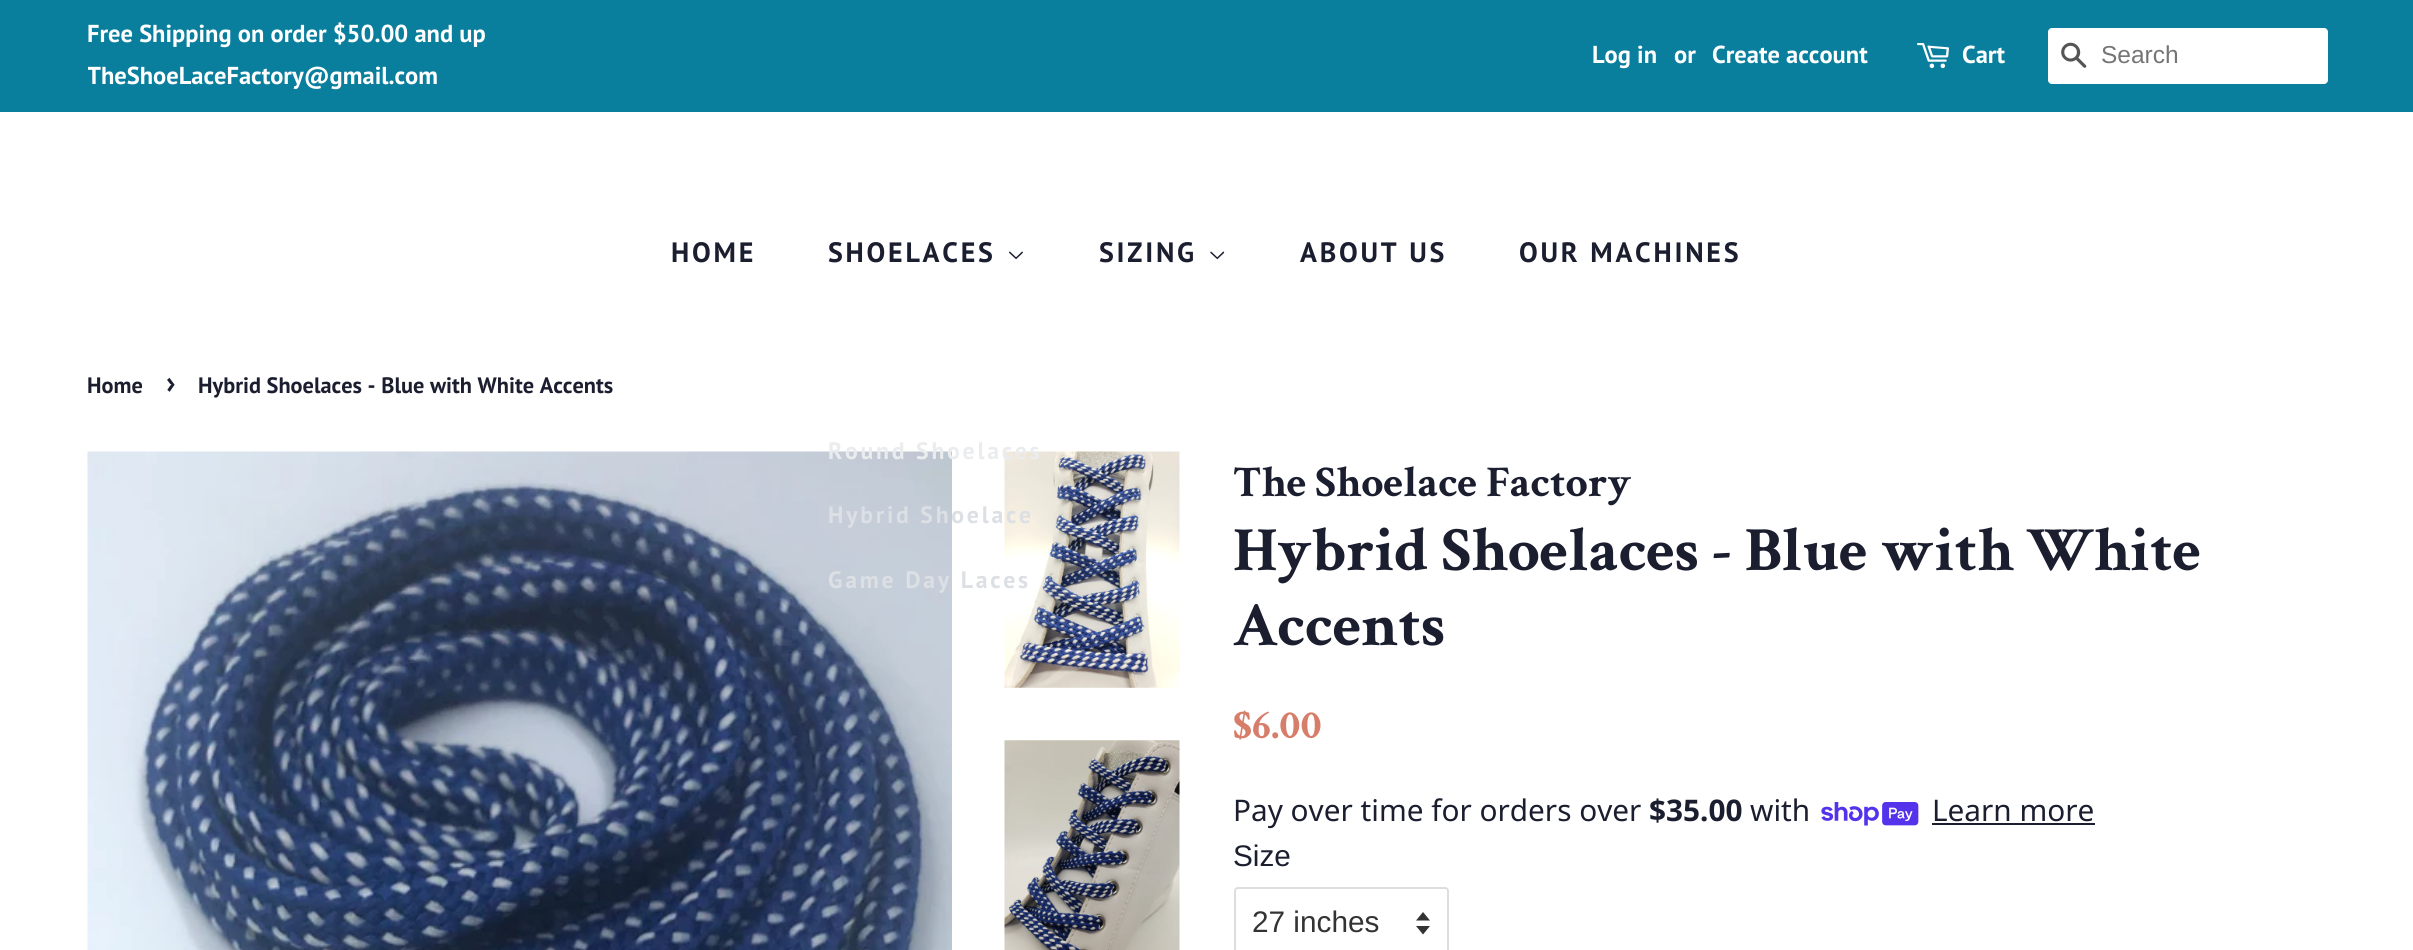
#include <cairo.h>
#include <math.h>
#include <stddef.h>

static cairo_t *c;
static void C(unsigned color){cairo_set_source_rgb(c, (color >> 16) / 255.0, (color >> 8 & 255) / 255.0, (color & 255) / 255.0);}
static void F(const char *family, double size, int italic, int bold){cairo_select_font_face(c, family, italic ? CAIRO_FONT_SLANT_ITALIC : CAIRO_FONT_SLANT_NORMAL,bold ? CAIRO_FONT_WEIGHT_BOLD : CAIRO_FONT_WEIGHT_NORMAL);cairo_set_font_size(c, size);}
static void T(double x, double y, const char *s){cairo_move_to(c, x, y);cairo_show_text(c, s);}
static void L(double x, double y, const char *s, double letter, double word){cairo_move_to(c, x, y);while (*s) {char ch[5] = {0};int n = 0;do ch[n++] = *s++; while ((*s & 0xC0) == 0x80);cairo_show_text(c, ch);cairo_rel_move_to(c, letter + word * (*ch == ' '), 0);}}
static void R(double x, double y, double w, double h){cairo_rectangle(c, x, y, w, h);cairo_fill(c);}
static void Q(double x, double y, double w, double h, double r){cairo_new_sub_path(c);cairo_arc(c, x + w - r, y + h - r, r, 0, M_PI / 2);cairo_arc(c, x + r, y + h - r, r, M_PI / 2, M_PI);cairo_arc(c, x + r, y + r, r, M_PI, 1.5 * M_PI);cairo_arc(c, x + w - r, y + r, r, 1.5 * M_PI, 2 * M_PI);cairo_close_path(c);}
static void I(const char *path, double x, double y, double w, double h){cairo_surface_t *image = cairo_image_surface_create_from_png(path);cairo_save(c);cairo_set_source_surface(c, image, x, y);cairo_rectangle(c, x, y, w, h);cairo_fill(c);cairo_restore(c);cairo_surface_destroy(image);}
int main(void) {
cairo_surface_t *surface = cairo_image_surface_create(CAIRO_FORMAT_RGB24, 2413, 950);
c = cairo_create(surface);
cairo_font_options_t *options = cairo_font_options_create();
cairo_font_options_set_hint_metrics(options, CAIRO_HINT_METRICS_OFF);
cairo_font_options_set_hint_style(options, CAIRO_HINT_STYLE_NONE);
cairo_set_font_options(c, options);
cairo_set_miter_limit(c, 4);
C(0xffffff);
cairo_paint(c);
C(0x0a7f9d);
R(0,0,2413,112);
F("PT Sans",24.5,0,1);
C(0xffffff);
T(87,42,"Free Shipping on order $50.00 and up");
cairo_save(c);
cairo_rectangle(c,88,14,745,84);
cairo_clip(c);
T(87,84,"TheShoeLaceFactory@gmail.com");
cairo_restore(c);
T(1592,63,"Log in");
T(1674,63,"or");
T(1712,63,"Create account");
I("1.png",1917,43,32,26);
T(1962,63,"Cart");
Q(2048,28,280,56,4);
cairo_fill(c);
I("2.png",2061,42,26,26);
F("Liberation Sans",24.5,0,0);
C(0x757575);
T(2101,63,"Search");
F("PT Sans",28,0,1);
C(0x1b1e2f);
L(671,262,"HOME",2.75,0);
L(828,262,"SHOELACES",2.75,0);
I("3.png",1009,251,14,9);
I("5.png",87,451,865,499);
I("6.png",1004,451,176,237);
F("PT Sans",23.75,0,1);
C(0xeaecee);
L(828,459,"Round Shoelaces",2.75,0);
C(0xdcdfe3);
L(828,523,"Hybrid Shoelace",2.75,0);
L(828,588,"Game Day Laces",2.75,0);
F("PT Sans",28,0,1);
C(0x1b1e2f);
L(1099,262,"SIZING",2.75,0);
I("4.png",1210,251,15,9);
L(1300,262,"ABOUT US",2.75,0);
L(1519,262,"OUR MACHINES",2.75,0);
F("PT Sans",22.3,0,1);
T(87,393,"Home");
F("PT Sans",31,0,1);
T(166,393,"›");
F("PT Sans",22.3,0,1);
T(198,393,"Hybrid Shoelaces - Blue with White Accents");
I("7.png",1004,740,176,210);
F("Crimson Text",43.75,0,1);
T(1233,496,"The Shoelace Factory");
F("Crimson Text",63,0,1);
T(1233,570,"Hybrid Shoelaces - Blue with White");
T(1233,645,"Accents");
F("Crimson Text",42,0,1);
C(0xd77e6a);
T(1233,738,"$6.00");
F("Noto Sans",29.75,0,0);
C(0x1b1e2f);
T(1233,821,"Pay over time for orders over");
F("Noto Sans",29.75,0,1);
T(1649,821,"$35.00");
F("Noto Sans",29.75,0,0);
T(1750,821,"with");
I("8.png",1821,802,98,24);
T(1932,821,"Learn more");
R(1932,823,163,2);
F("Liberation Sans",29.75,0,0);
T(1233,866,"Size");
C(0x333333);
cairo_new_path(c);
cairo_move_to(c,1416,926);
cairo_line_to(c,1423,934.5);
cairo_line_to(c,1430,926);
cairo_close_path(c);
cairo_move_to(c,1423,912);
cairo_line_to(c,1416,920.5);
cairo_line_to(c,1430,920.5);
cairo_close_path(c);
cairo_fill(c);
Q(1235,888,213,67,3);
C(0xdddde0);
cairo_stroke(c);
C(0x333333);
T(1252,932,"27 inches");
cairo_surface_write_to_png(surface, "o.png");
cairo_font_options_destroy(options);
cairo_destroy(c);
cairo_surface_destroy(surface);
return 0;
}
